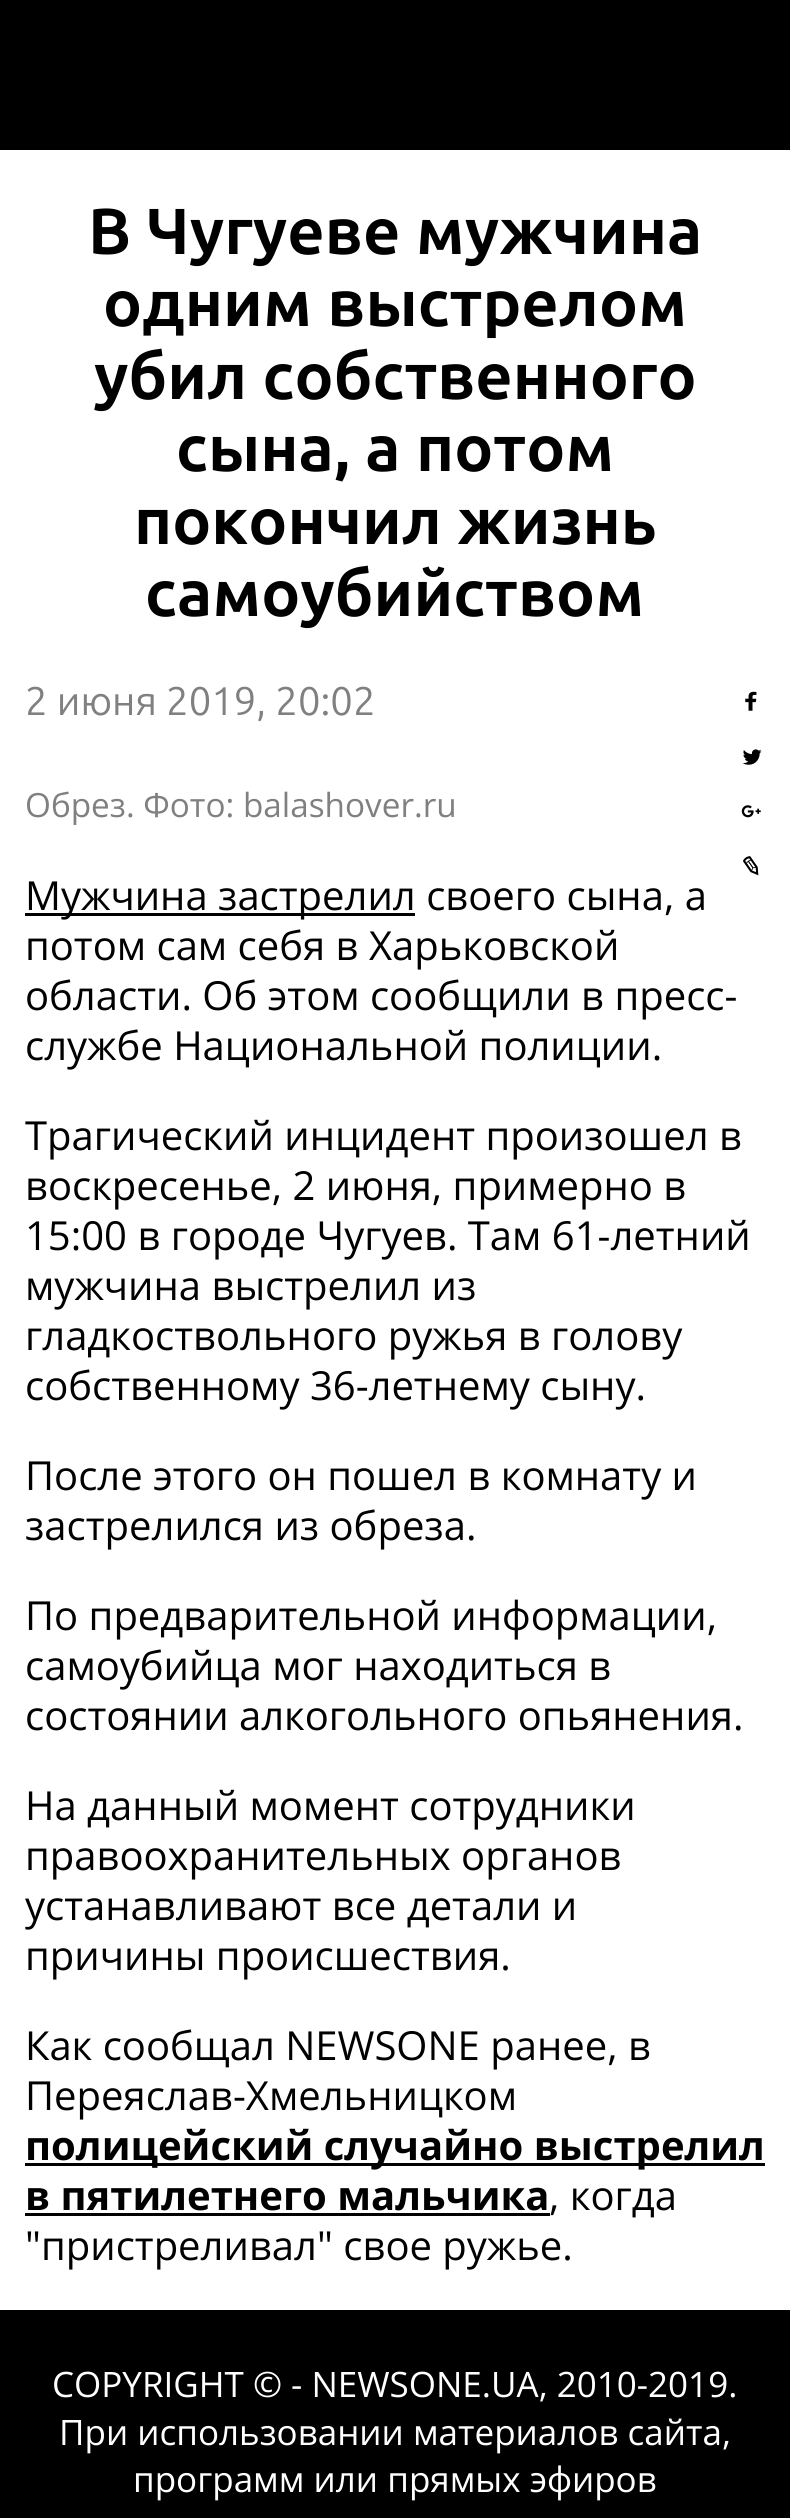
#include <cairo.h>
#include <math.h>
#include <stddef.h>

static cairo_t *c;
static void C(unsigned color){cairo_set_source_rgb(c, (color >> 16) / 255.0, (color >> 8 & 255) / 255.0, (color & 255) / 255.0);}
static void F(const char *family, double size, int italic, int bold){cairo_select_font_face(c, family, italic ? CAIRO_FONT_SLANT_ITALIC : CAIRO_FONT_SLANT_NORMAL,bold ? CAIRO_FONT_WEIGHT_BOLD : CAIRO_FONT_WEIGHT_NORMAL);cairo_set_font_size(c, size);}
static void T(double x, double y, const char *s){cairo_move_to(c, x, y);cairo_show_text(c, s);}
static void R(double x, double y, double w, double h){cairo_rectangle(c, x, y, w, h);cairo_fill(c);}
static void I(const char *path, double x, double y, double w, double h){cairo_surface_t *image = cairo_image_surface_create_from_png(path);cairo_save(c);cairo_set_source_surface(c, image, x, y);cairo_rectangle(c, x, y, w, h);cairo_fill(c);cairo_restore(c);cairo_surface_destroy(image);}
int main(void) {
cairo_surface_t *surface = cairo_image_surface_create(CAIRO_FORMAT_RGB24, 790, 2518);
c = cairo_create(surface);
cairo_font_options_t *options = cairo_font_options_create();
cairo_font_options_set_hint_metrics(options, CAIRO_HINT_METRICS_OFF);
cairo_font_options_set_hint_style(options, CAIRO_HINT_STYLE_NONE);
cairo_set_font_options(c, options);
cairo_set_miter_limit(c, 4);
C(0xffffff);
cairo_paint(c);
C(0x000000);
R(0,0,790,150);
F("Ubuntu",65,0,1);
T(88,254,"В Чугуеве мужчина");
T(103,326,"одним выстрелом");
T(94,399,"убил собственного");
T(176,471,"сына, а потом");
T(134,544,"покончил жизнь");
T(145,616,"самоубийством");
F("Ubuntu",40,0,0);
C(0x808080);
T(25,715,"2 июня 2019, 20:02");
I("1.png",745,691,12,20);
I("2.png",742,749,20,16);
I("3.png",741,805,20,13);
I("4.png",743,856,16,20);
F("Open Sans",33.3,0,0);
T(25,817,"Обрез. Фото: balashover.ru");
C(0x000000);
R(25,913,390,3);
F("Open Sans",40,0,0);
T(25,910,"Мужчина застрелил своего сына, а");
T(25,960,"потом сам себя в Харьковской");
T(25,1010,"области. Об этом сообщили в пресс-");
T(25,1060,"службе Национальной полиции.");
T(25,1150,"Трагический инцидент произошел в");
T(25,1200,"воскресенье, 2 июня, примерно в");
T(25,1250,"15:00 в городе Чугуев. Там 61-летний");
T(25,1300,"мужчина выстрелил из");
T(25,1350,"гладкоствольного ружья в голову");
T(25,1400,"собственному 36-летнему сыну.");
T(25,1490,"После этого он пошел в комнату и");
T(25,1540,"застрелился из обреза.");
T(25,1630,"По предварительной информации,");
T(25,1680,"самоубийца мог находиться в");
T(25,1730,"состоянии алкогольного опьянения.");
T(25,1820,"На данный момент сотрудники");
T(25,1870,"правоохранительных органов");
T(25,1920,"устанавливают все детали и");
T(25,1970,"причины происшествия.");
T(25,2060,"Как сообщал NEWSONE ранее, в");
T(25,2110,"Переяслав-Хмельницком");
R(25,2163,740,3);
F("Open Sans",40,0,1);
T(25,2160,"полицейский случайно выстрелил");
T(25,2210,"в пятилетнего мальчика");
R(25,2213,525,3);
F("Open Sans",40,0,0);
T(549,2210,", когда");
T(25,2260,"\"пристреливал\" свое ружье.");
R(0,2310,790,208);
F("Open Sans",35,0,0);
C(0xffffff);
T(52,2397,"COPYRIGHT © - NEWSONE.UA, 2010-2019.");
T(59,2445,"При использовании материалов сайта,");
T(133,2492,"программ или прямых эфиров");
cairo_surface_write_to_png(surface, "o.png");
cairo_font_options_destroy(options);
cairo_destroy(c);
cairo_surface_destroy(surface);
return 0;
}
